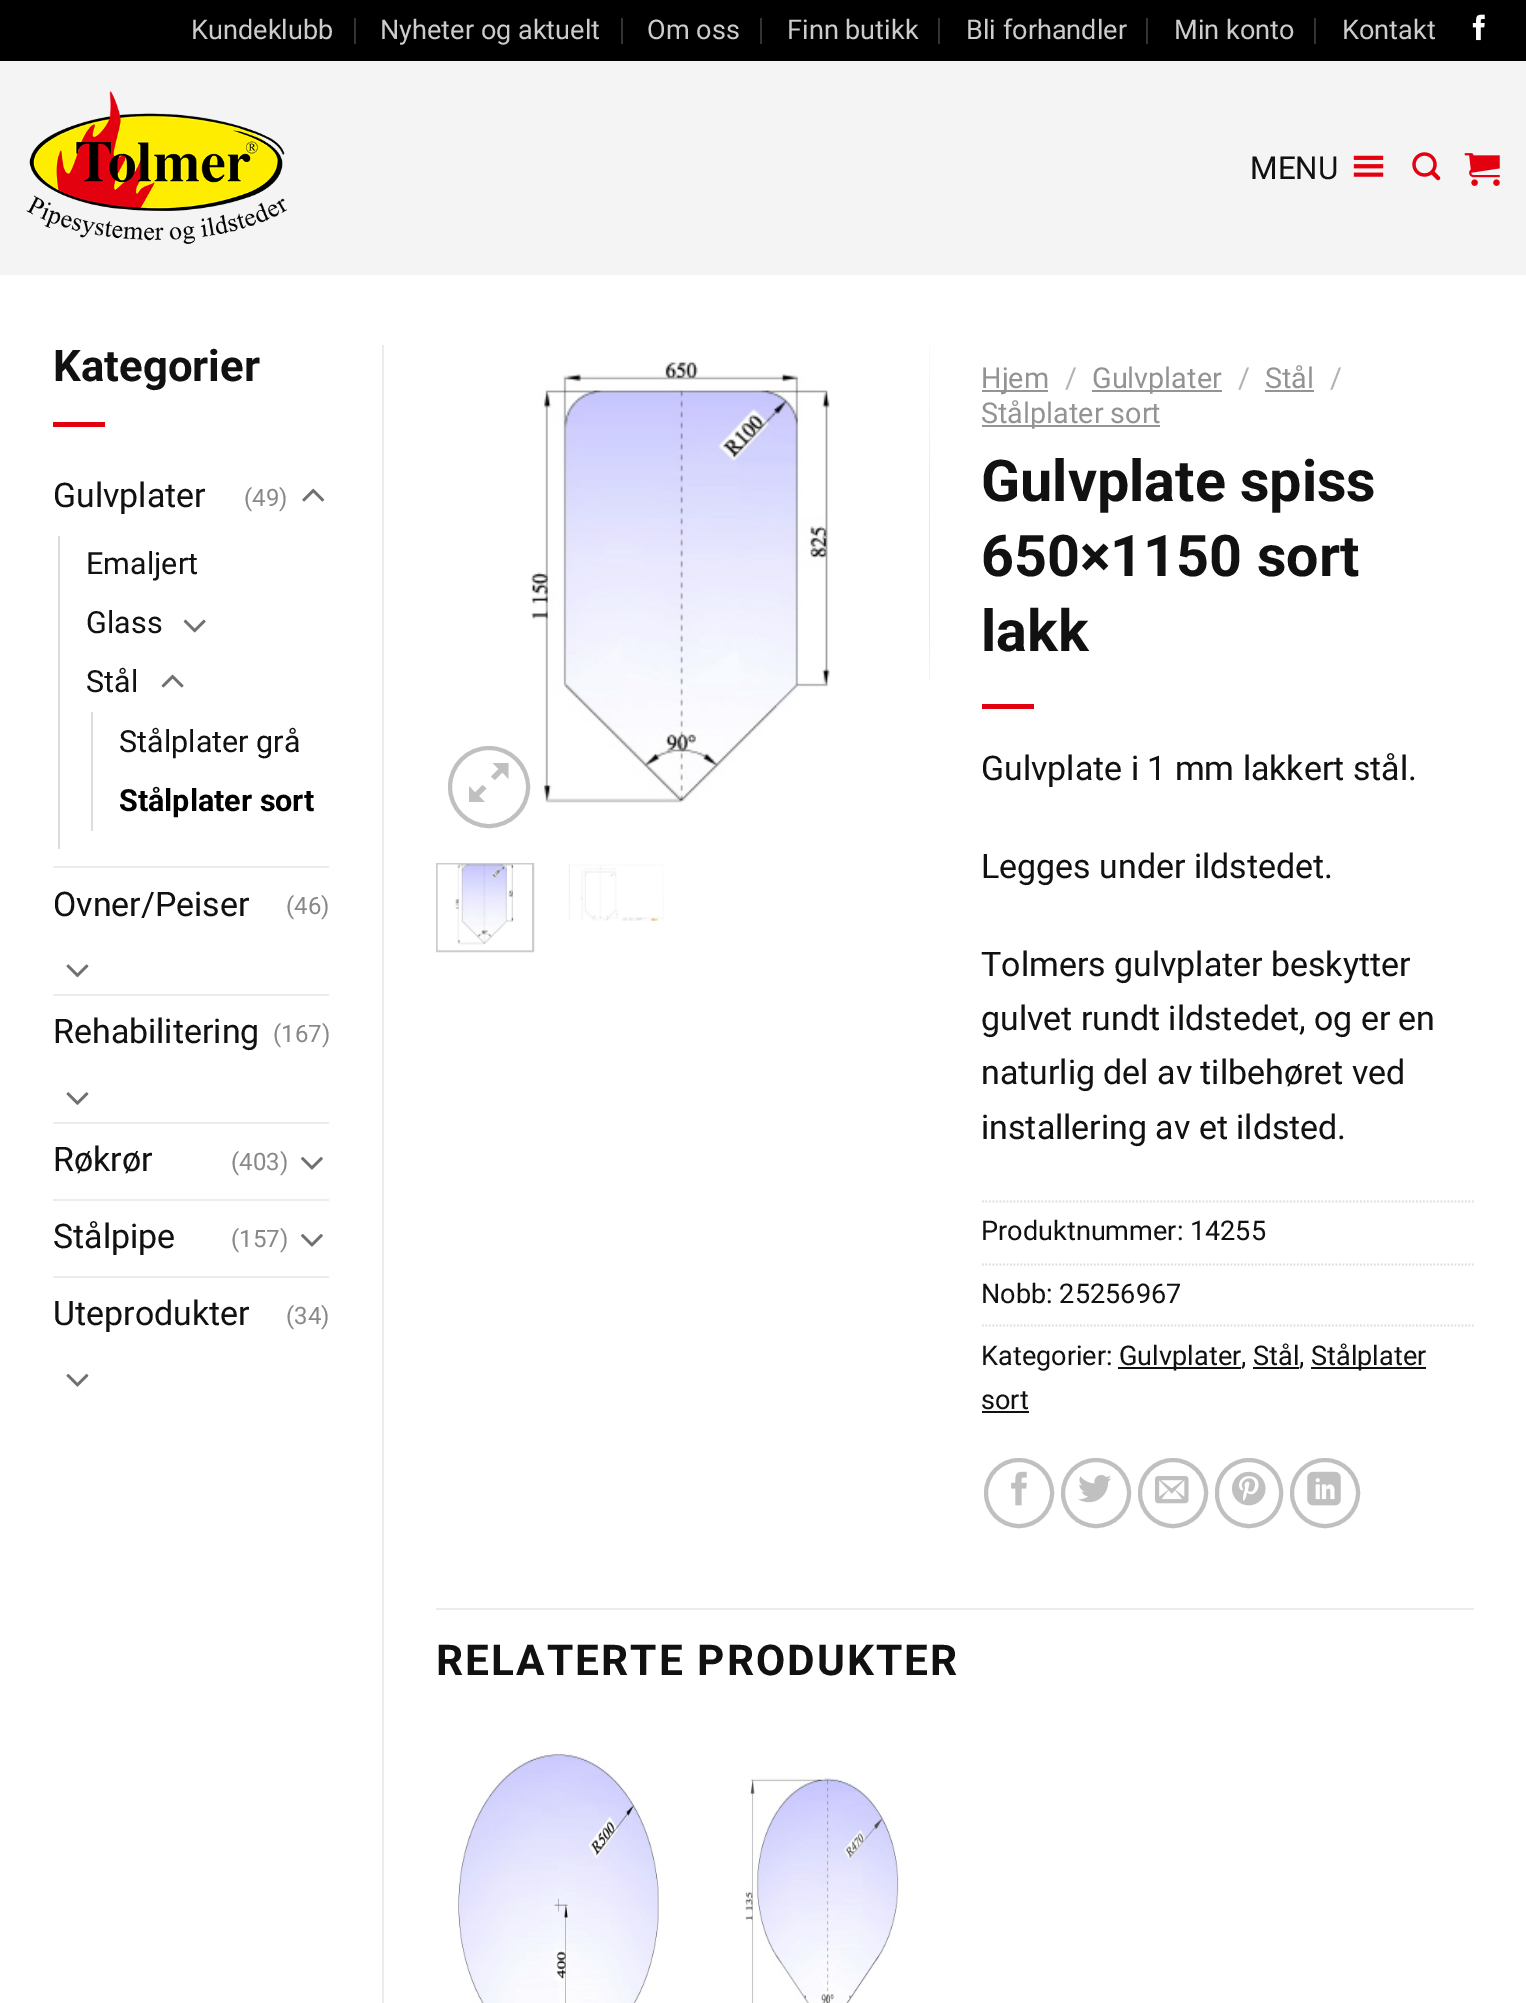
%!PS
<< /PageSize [1526 2003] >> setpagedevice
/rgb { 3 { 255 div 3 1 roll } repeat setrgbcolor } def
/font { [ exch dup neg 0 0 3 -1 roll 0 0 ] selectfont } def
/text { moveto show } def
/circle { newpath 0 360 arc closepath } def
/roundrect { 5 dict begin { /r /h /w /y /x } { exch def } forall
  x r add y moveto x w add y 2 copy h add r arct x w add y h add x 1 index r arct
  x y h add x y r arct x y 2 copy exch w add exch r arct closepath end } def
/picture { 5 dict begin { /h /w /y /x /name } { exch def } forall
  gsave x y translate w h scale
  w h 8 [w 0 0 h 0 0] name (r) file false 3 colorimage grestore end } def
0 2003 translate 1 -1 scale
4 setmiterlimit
255 255 255 rgb
0 0 1526 2003 rectfill
0 0 0 rgb
0 0 1526 61 rectfill
51 51 51 rgb
354 18 2 26 rectfill
621 18 2 26 rectfill
760 18 2 26 rectfill
938 18 2 26 rectfill
1146 18 2 26 rectfill
1314 18 2 26 rectfill
(img_01.rgb) 1472 14 13 27 picture
244 244 244 rgb
0 61 1526 214 rectfill
(img_02.rgb) 26 91 261 153 picture
(img_03.rgb) 1353 155 31 22 picture
(img_04.rgb) 1412 152 29 29 picture
(img_05.rgb) 1464 153 36 33 picture
227 0 15 rgb
53 422 52 5 rectfill
(img_06.rgb) 302 488 23 14 picture
221 221 221 rgb
58 536 2 313 rectfill
(img_07.rgb) 183 619 23 14 picture
(img_08.rgb) 161 674 23 14 picture
91 712 2 119 rectfill
236 236 236 rgb
53 866 276 2 rectfill
(img_09.rgb) 66 964 23 14 picture
53 994 276 2 rectfill
(img_10.rgb) 66 1092 23 13 picture
53 1122 276 2 rectfill
(img_11.rgb) 301 1157 22 13 picture
53 1199 276 2 rectfill
(img_11.rgb) 301 1234 22 13 picture
53 1276 276 2 rectfill
(img_12.rgb) 66 1374 23 13 picture
382 345 2 1658 rectfill
192 192 192 rgb
4 setlinewidth
489 787 39 circle stroke
508.5 763 moveto 0 16 rlineto -6 -6.5 rlineto -7.5 7.5 rlineto -4 -3.5 rlineto 7.5 -7.5 rlineto -6 -6 rlineto closepath 486.5 788.5 moveto -7.5 7.5 rlineto 6 6 rlineto -16 0 rlineto 0 -16 rlineto 6 6.5 rlineto 7.5 -7.5 rlineto closepath fill
(img_13.rgb) 531 361 299 442 picture
(img_14.rgb) 929 345 1 336 picture
204 204 204 rgb
2 setlinewidth
437 864 96 87 rectstroke
(img_15.rgb) 437 864 95 87 picture
(img_16.rgb) 568 864 96 57 picture
148 148 148 rgb
982 390 66 2 rectfill
1092 390 130 2 rectfill
1265 390 49 2 rectfill
982 425 178 2 rectfill
227 0 15 rgb
982 704 52 5 rectfill
221 221 221 rgb
1.8 setlinewidth
[1.75 1.75] 0 setdash
982 1201.5 moveto 491.5 0 rlineto stroke
982 1264.5 moveto 491.5 0 rlineto stroke
982 1325.5 moveto 491.5 0 rlineto stroke
17 17 17 rgb
1118 1367 123 2 rectfill
1311 1367 115 2 rectfill
1253 1367 46 2 rectfill
982 1411 47 2 rectfill
192 192 192 rgb
4 setlinewidth
[] 0 setdash
1019 1493 33 circle stroke
(img_17.rgb) 1011 1471 16 35 picture
1096 1493 33 circle stroke
(img_18.rgb) 1078 1475 34 28 picture
1173 1493 33 circle stroke
(img_19.rgb) 1155 1476 34 28 picture
1217 1460 64 66 32 roundrect stroke
(img_20.rgb) 1232 1471 34 35 picture
1325 1493 33 circle stroke
(img_21.rgb) 1307 1471 34 35 picture
236 236 236 rgb
436 1608 1038 2 rectfill
(img_22.rgb) 458 1753 201 250 picture
(img_23.rgb) 745 1772 154 231 picture
/Roboto-Regular 27.1 font
204 204 204 rgb
(Kundeklubb) 191 39 text
(Nyheter og aktuelt) 380 39 text
(Om oss) 647 39 text
(Finn butikk) 787 39 text
(Bli forhandler) 966 39 text
(Min konto) 1174 39 text
(Kontakt) 1342 39 text
/Roboto-Regular 31.5 font
17 17 17 rgb
(MENU) 1250 179 text
/Roboto-Bold 43.75 font
(Kategorier) 53 381 text
/Roboto-Regular 33.9 font
(Gulvplater) 53 507 text
/Roboto-Regular 24 font
136 136 136 rgb
(\(49\)) 244 506 text
/Roboto-Regular 30.5 font
17 17 17 rgb
(Emaljert) 86 574 text
(Glass) 86 633 text
(Stål) 86 692 text
(Stålplater grå) 119 752 text
/Roboto-Bold 30.5 font
0 0 0 rgb
(Stålplater sort) 119 811 text
/Roboto-Regular 33.9 font
17 17 17 rgb
(Ovner/Peiser) 53 916 text
/Roboto-Regular 24 font
136 136 136 rgb
(\(46\)) 286 914 text
/Roboto-Regular 33.9 font
17 17 17 rgb
(Rehabilitering) 53 1043 text
/Roboto-Regular 24 font
136 136 136 rgb
(\(167\)) 273 1042 text
/Roboto-Regular 33.9 font
17 17 17 rgb
(Røkrør) 53 1171 text
/Roboto-Regular 24 font
136 136 136 rgb
(\(403\)) 231 1170 text
/Roboto-Regular 33.9 font
17 17 17 rgb
(Stålpipe) 53 1248 text
/Roboto-Regular 24 font
136 136 136 rgb
(\(157\)) 231 1247 text
/Roboto-Regular 33.9 font
17 17 17 rgb
(Uteprodukter) 53 1325 text
/Roboto-Regular 24 font
136 136 136 rgb
(\(34\)) 286 1324 text
/Roboto-Regular 28.75 font
147 147 147 rgb
(Hjem) 981 388 text
178 178 178 rgb
(/) 1065 388 text
147 147 147 rgb
(Gulvplater) 1092 388 text
178 178 178 rgb
(/) 1238 388 text
147 147 147 rgb
(Stål) 1265 388 text
178 178 178 rgb
(/) 1330 388 text
147 147 147 rgb
(Stålplater sort) 981 423 text
/Roboto-Bold 57.5 font
17 17 17 rgb
(Gulvplate spiss) 981 501 text
(650×1150 sort) 981 576 text
(lakk) 981 651 text
/Roboto-Regular 33.9 font
(Gulvplate i 1 mm lakkert stål.) 981 780 text
(Legges under ildstedet.) 981 878 text
(Tolmers gulvplater beskytter) 981 976 text
(gulvet rundt ildstedet, og er en) 981 1030 text
(naturlig del av tilbehøret ved) 981 1084 text
(installering av et ildsted.) 981 1139 text
/Roboto-Regular 27.1 font
(Produktnummer: 14255) 981 1240 text
(Nobb: 25256967) 981 1303 text
(Kategorier:) 981 1365 text
(Gulvplater, Stål,) 1119 1365 text
(Stålplater) 1311 1365 text
(sort) 981 1409 text
/Roboto-Bold 42.4 font
436 1675 moveto 2.1 0 (RELATERTE PRODUKTER) ashow
showpage
